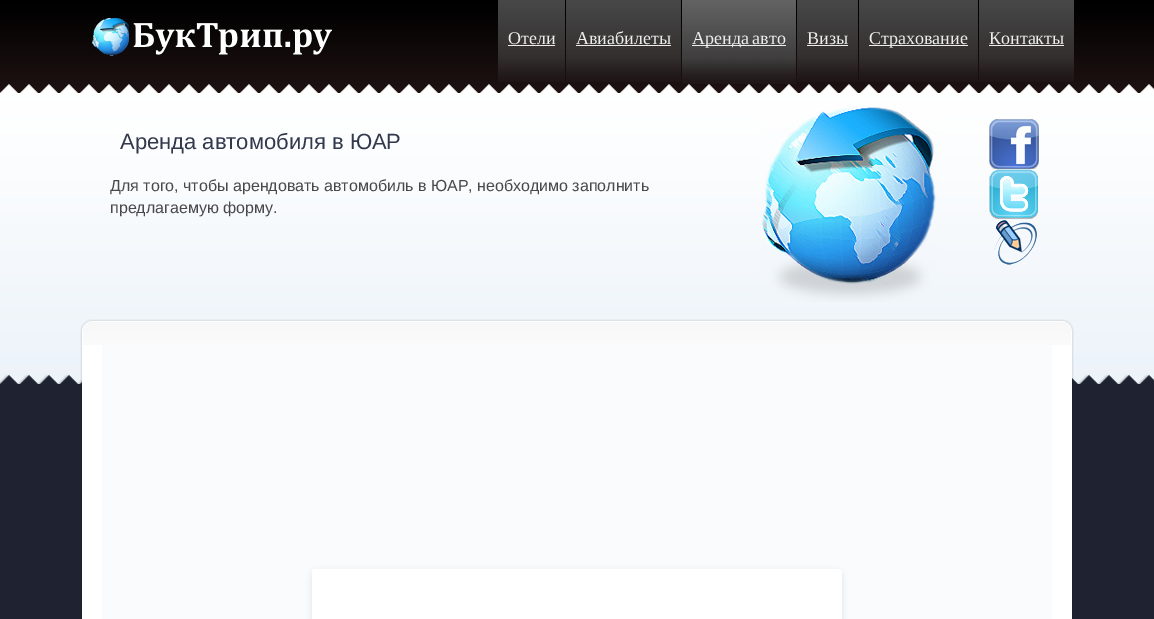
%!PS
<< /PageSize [1154 619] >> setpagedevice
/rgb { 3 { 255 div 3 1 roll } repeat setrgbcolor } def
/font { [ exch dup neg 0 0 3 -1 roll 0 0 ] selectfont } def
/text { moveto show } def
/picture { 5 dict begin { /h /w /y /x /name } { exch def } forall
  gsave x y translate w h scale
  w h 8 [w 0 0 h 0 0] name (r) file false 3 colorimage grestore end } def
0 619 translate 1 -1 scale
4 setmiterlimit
31 35 49 rgb
0 0 1154 619 rectfill
(img_01.rgb) 0 0 1154 384 picture
(img_02.rgb) 92 18 240 38 picture
(img_03.rgb) 498 0 67 82 picture
237 237 237 rgb
508 45 47 1 rectfill
(img_04.rgb) 566 0 115 82 picture
576 45 95 1 rectfill
(img_05.rgb) 682 0 114 84 picture
692 45 94 1 rectfill
(img_06.rgb) 797 0 61 82 picture
807 45 41 1 rectfill
(img_07.rgb) 859 0 119 82 picture
869 45 99 1 rectfill
(img_08.rgb) 979 0 95 82 picture
989 45 75 1 rectfill
(img_09.rgb) 762 103 176 199 picture
(img_10.rgb) 989 119 50 50 picture
(img_11.rgb) 989 169 49 50 picture
(img_12.rgb) 994 220 43 45 picture
(img_13.rgb) 80 345 994 274 picture
(img_14.rgb) 80 319 994 26 picture
(img_15.rgb) 102 345 950 274 picture
/LiberationSerif-Regular 18 font
(Отели) 508 44 text
(Авиабилеты) 576 44 text
692 44 moveto -1 0 32 (Аренда авто) widthshow
(Визы) 807 44 text
(Страхование) 869 44 text
(Контакты) 989 44 text
/LiberationSans-Regular 22 font
51 57 76 rgb
(Аренда автомобиля в ЮАР) 120 149 text
/LiberationSans-Regular 16 font
73 73 73 rgb
(Для того, чтобы арендовать автомобиль в ЮАР, необходимо заполнить) 110 191 text
(предлагаемую форму.) 110 213 text
showpage
